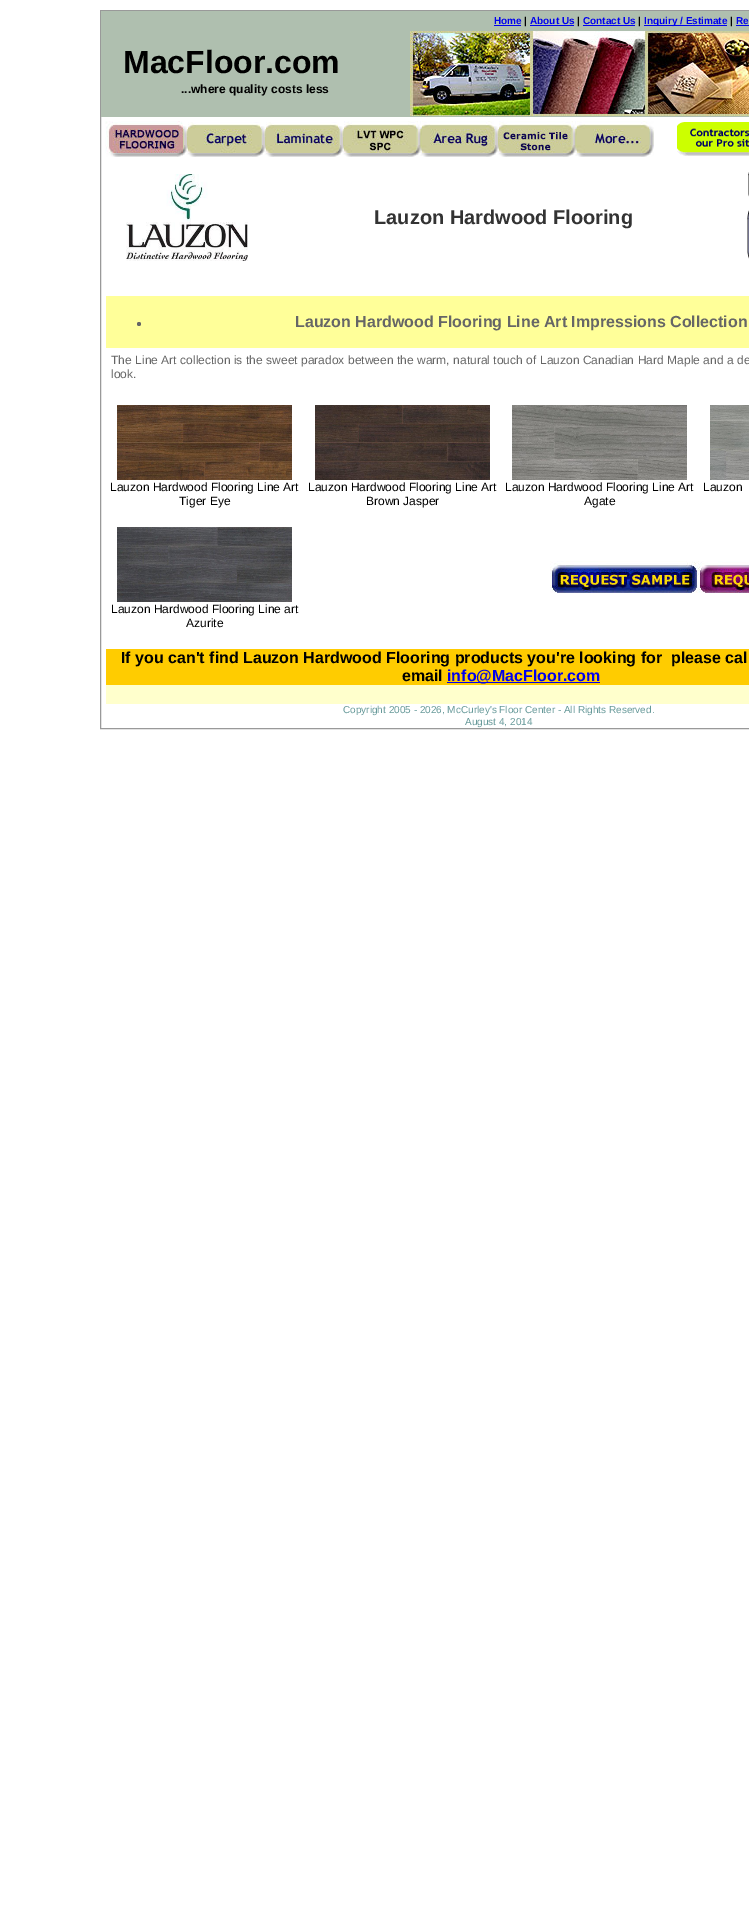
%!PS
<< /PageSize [749 1932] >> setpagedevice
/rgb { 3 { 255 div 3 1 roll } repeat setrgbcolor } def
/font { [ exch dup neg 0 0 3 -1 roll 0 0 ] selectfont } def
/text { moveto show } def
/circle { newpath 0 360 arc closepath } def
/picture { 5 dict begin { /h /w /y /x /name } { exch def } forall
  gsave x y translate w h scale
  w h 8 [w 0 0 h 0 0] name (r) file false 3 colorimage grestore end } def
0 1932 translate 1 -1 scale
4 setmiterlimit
255 255 255 rgb
0 0 749 1932 rectfill
153 153 153 rgb
100.5 10.5 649 718 rectstroke
175 191 175 rgb
101 11 648 106 rectfill
0 0 238 rgb
494 25 27 1 rectfill
530 25 44 1 rectfill
583 25 52 1 rectfill
644 25 83 1 rectfill
736 25 13 1 rectfill
(img_01.rgb) 410 31 339 85 picture
(img_02.rgb) 105 121 78 36 picture
(img_03.rgb) 183 126 5 29 picture
(img_04.rgb) 188 122 73 35 picture
(img_03.rgb) 261 126 5 29 picture
(img_05.rgb) 266 122 73 35 picture
(img_03.rgb) 339 126 5 29 picture
(img_06.rgb) 344 121 72 36 picture
(img_07.rgb) 416 121 6 35 picture
(img_08.rgb) 422 121 72 36 picture
(img_03.rgb) 494 126 5 29 picture
(img_09.rgb) 499 121 72 36 picture
(img_07.rgb) 571 121 6 35 picture
(img_10.rgb) 577 121 77 36 picture
(img_11.rgb) 677 122 72 34 picture
(img_12.rgb) 126 174 122 87 picture
(img_13.rgb) 747 172 2 87 picture
255 255 153 rgb
106 296 643 52 rectfill
102 102 102 rgb
139 324 2 circle fill
(img_14.rgb) 117 405 175 75 picture
(img_15.rgb) 315 405 175 75 picture
(img_16.rgb) 512 405 175 75 picture
(img_17.rgb) 710 405 39 75 picture
(img_18.rgb) 117 527 175 75 picture
(img_19.rgb) 550 561 199 32 picture
255 204 0 rgb
106 649 643 36 rectfill
0 0 238 rgb
447 682 153 1 rectfill
255 255 204 rgb
106 685 643 19 rectfill
/LiberationSans-Bold 10 font
0 0 238 rgb
(Home) 494 24 text
0 0 0 rgb
(|) 524 24 text
0 0 238 rgb
(About Us) 530 24 text
0 0 0 rgb
(|) 577 24 text
0 0 238 rgb
(Contact Us) 583 24 text
0 0 0 rgb
(|) 638 24 text
0 0 238 rgb
(Inquiry / Estimate) 644 24 text
0 0 0 rgb
(|) 730 24 text
0 0 238 rgb
(Re) 736 24 text
/LiberationSans-Bold 32 font
0 0 0 rgb
(MacFloor.com) 123 73 text
/LiberationSans-Bold 12 font
(...where quality costs less) 181 93 text
/LiberationSans-Bold 20 font
51 51 51 rgb
(Lauzon Hardwood Flooring) 374 224 text
/LiberationSans-Bold 16 font
102 102 102 rgb
(Lauzon Hardwood Flooring Line Art Impressions Collection) 295 327 text
/LiberationSans-Regular 12 font
111 364 moveto 0.2 0 32 (The Line Art collection is the sweet paradox between the warm, natural touch of Lauzon Canadian Hard Maple and a de) widthshow
(look.) 111 378 text
0 0 0 rgb
(Lauzon Hardwood Flooring Line Art) 110 491 text
(Tiger Eye) 179 505 text
(Lauzon Hardwood Flooring Line Art) 308 491 text
(Brown Jasper) 366 505 text
(Lauzon Hardwood Flooring Line Art) 505 491 text
(Agate) 584 505 text
(Lauzon) 703 491 text
(Lauzon Hardwood Flooring Line art) 111 613 text
(Azurite) 186 627 text
/LiberationSans-Bold 16 font
(If you can't find Lauzon Hardwood Flooring products you're looking for) 121 663 text
(please cal) 671 663 text
(email) 402 681 text
0 0 238 rgb
(info@MacFloor.com) 447 681 text
/LiberationSans-Regular 10 font
102 153 153 rgb
(Copyright 2005 - 2026, McCurley's Floor Center - All Rights Reserved.) 343 713 text
(August 4, 2014) 465 725 text
showpage
